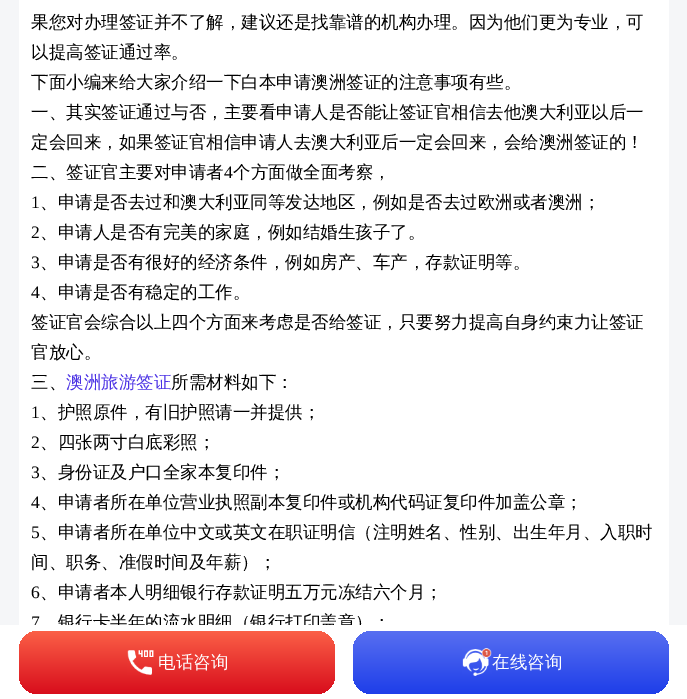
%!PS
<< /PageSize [687 699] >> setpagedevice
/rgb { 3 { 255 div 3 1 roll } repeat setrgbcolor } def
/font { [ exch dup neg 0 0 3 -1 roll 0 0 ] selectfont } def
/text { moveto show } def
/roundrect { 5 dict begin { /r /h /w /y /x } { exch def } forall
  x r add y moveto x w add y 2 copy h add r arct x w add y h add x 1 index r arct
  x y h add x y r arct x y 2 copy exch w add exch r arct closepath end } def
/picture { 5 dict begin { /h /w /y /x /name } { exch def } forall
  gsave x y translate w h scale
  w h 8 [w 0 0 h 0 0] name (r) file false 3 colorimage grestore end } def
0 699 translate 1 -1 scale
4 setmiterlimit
245 246 248 rgb
0 0 687 699 rectfill
255 255 255 rgb
19 0 650 625 rectfill
/WenQuanYiZenHei-Medium 17.5 font
0 0 0 rgb
(果您对办理签证并不了解，建议还是找靠谱的机构办理。因为他们更为专业，可) 31 28 text
(以提高签证通过率。) 31 58 text
(下面小编来给大家介绍一下白本申请澳洲签证的注意事项有些。) 31 88 text
(一、其实签证通过与否，主要看申请人是否能让签证官相信去他澳大利亚以后一) 31 118 text
(定会回来，如果签证官相信申请人去澳大利亚后一定会回来，会给澳洲签证的！) 31 148 text
(二、签证官主要对申请者) 31 178 text
/LiberationSerif-Regular 17.5 font
(4) 224 178 text
/WenQuanYiZenHei-Medium 17.5 font
(个方面做全面考察，) 233 178 text
/LiberationSerif-Regular 17.5 font
(1) 31 208 text
/WenQuanYiZenHei-Medium 17.5 font
(、申请是否去过和澳大利亚同等发达地区，例如是否去过欧洲或者澳洲；) 40 208 text
/LiberationSerif-Regular 17.5 font
(2) 31 238 text
/WenQuanYiZenHei-Medium 17.5 font
(、申请人是否有完美的家庭，例如结婚生孩子了。) 40 238 text
/LiberationSerif-Regular 17.5 font
(3) 31 268 text
/WenQuanYiZenHei-Medium 17.5 font
(、申请是否有很好的经济条件，例如房产、车产，存款证明等。) 40 268 text
/LiberationSerif-Regular 17.5 font
(4) 31 298 text
/WenQuanYiZenHei-Medium 17.5 font
(、申请是否有稳定的工作。) 40 298 text
(签证官会综合以上四个方面来考虑是否给签证，只要努力提高自身约束力让签证) 31 328 text
(官放心。) 31 358 text
(三、) 31 388 text
76 51 229 rgb
(澳洲旅游签证) 66 388 text
0 0 0 rgb
(所需材料如下：) 171 388 text
/LiberationSerif-Regular 17.5 font
(1) 31 418 text
/WenQuanYiZenHei-Medium 17.5 font
(、护照原件，有旧护照请一并提供；) 40 418 text
/LiberationSerif-Regular 17.5 font
(2) 31 448 text
/WenQuanYiZenHei-Medium 17.5 font
(、四张两寸白底彩照；) 40 448 text
/LiberationSerif-Regular 17.5 font
(3) 31 478 text
/WenQuanYiZenHei-Medium 17.5 font
(、身份证及户口全家本复印件；) 40 478 text
/LiberationSerif-Regular 17.5 font
(4) 31 508 text
/WenQuanYiZenHei-Medium 17.5 font
(、申请者所在单位营业执照副本复印件或机构代码证复印件加盖公章；) 40 508 text
/LiberationSerif-Regular 17.5 font
(5) 31 538 text
/WenQuanYiZenHei-Medium 17.5 font
(、申请者所在单位中文或英文在职证明信（注明姓名、性别、出生年月、入职时) 40 538 text
(间、职务、准假时间及年薪）；) 31 568 text
/LiberationSerif-Regular 17.5 font
(6) 31 598 text
/WenQuanYiZenHei-Medium 17.5 font
(、申请者本人明细银行存款证明五万元冻结六个月；) 40 598 text
/LiberationSerif-Regular 17.5 font
(7) 31 628 text
/WenQuanYiZenHei-Medium 17.5 font
(、银行卡半年的流水明细（银行打印盖章）；) 40 628 text
255 255 255 rgb
0 625 687 74 rectfill
gsave 19 631 316 63 19 roundrect clip newpath
<< /ShadingType 2 /ColorSpace /DeviceRGB /Coords [177 631 177 694] /Extend [true true] /Function << /FunctionType 2 /Domain [0 1] /C0 [0.984 0.376 0.278] /C1 [0.847 0.051 0.11] /N 1 >> >> shfill grestore
(img_01.rgb) 127 650 27 25 picture
(电话咨询) 158 668 text
gsave 353 631 316 63 19 roundrect clip newpath
<< /ShadingType 2 /ColorSpace /DeviceRGB /Coords [511 631 511 694] /Extend [true true] /Function << /FunctionType 2 /Domain [0 1] /C0 [0.345 0.435 0.945] /C1 [0.118 0.243 0.914] /N 1 >> >> shfill grestore
(img_02.rgb) 462 648 30 28 picture
(在线咨询) 492 668 text
showpage
